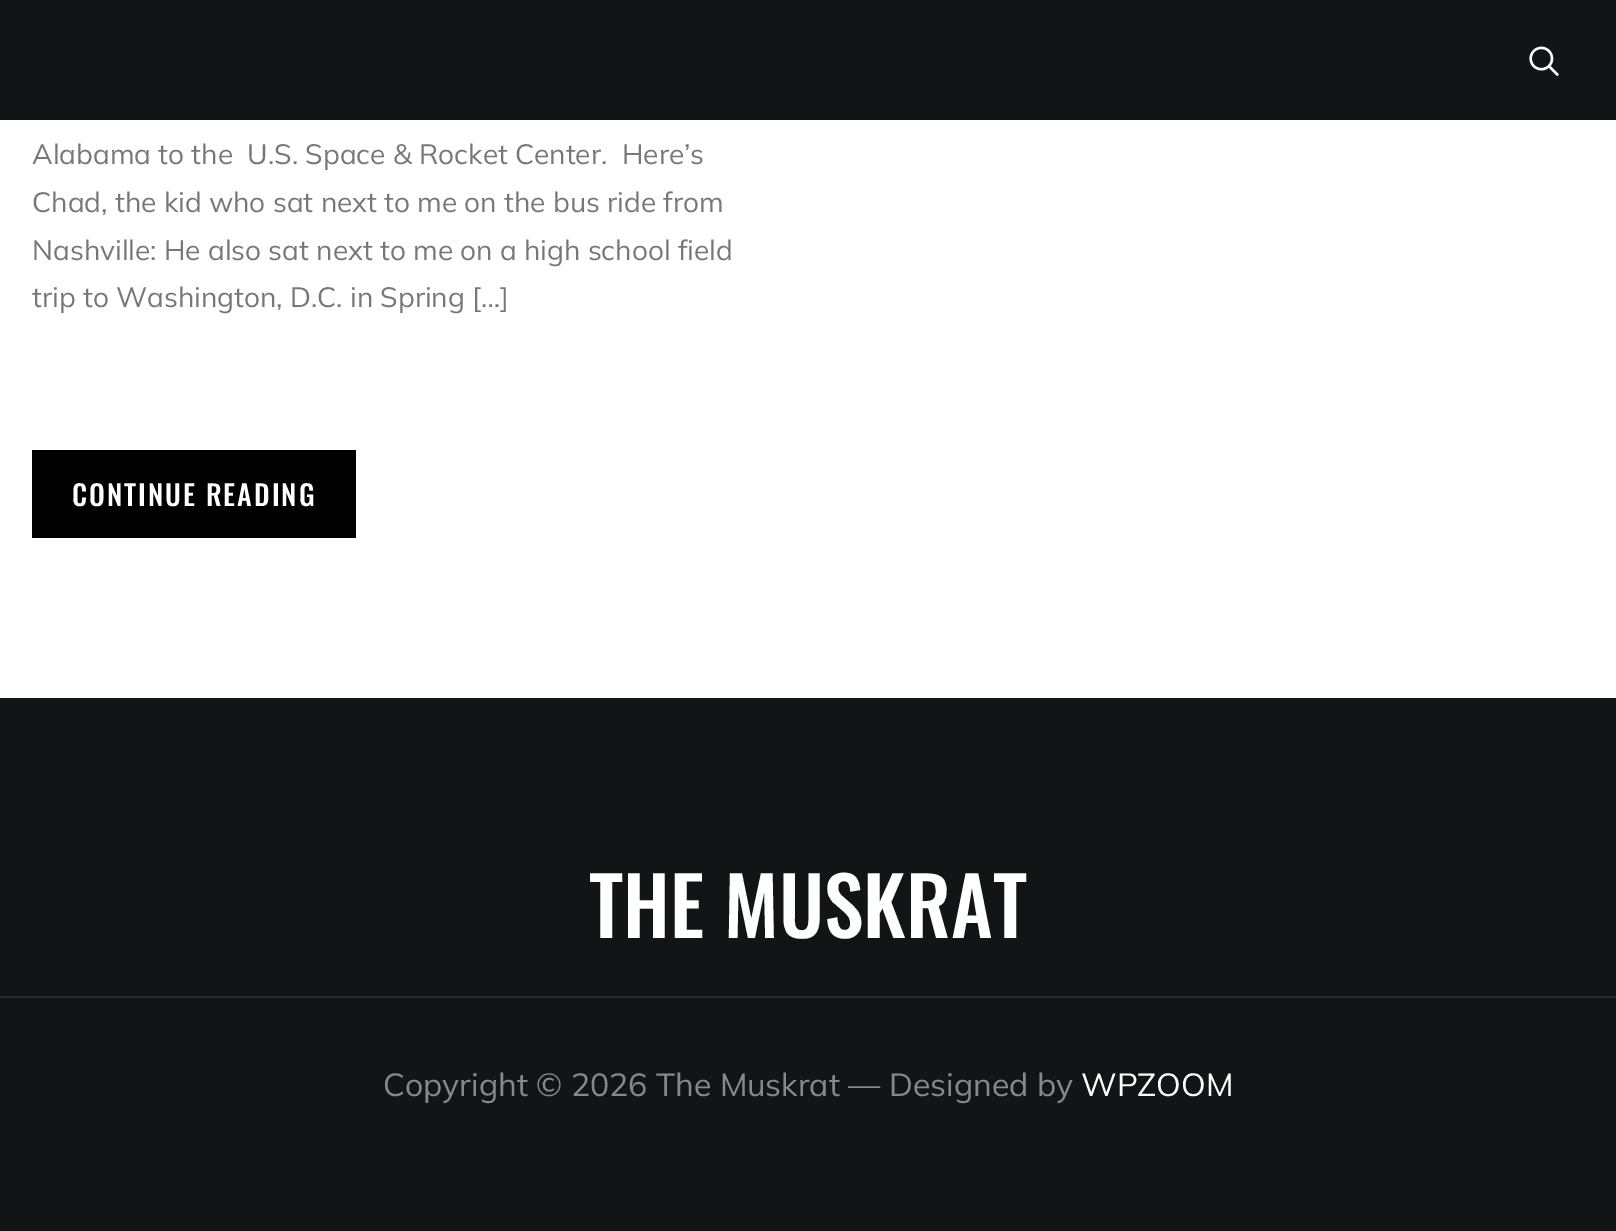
%!PS
<< /PageSize [1616 1231] >> setpagedevice
/rgb { 3 { 255 div 3 1 roll } repeat setrgbcolor } def
/font { [ exch dup neg 0 0 3 -1 roll 0 0 ] selectfont } def
/text { moveto show } def
/picture { 5 dict begin { /h /w /y /x /name } { exch def } forall
  gsave x y translate w h scale
  w h 8 [w 0 0 h 0 0] name (r) file false 3 colorimage grestore end } def
0 1231 translate 1 -1 scale
4 setmiterlimit
255 255 255 rgb
0 0 1616 1231 rectfill
18 21 22 rgb
0 0 1616 120 rectfill
(img_01.rgb) 1529 46 30 30 picture
0 0 0 rgb
32 450 324 88 rectfill
18 21 22 rgb
0 698 1616 533 rectfill
42 44 45 rgb
0 996 1616 2 rectfill
/Mulish-Regular 28 font
119 119 119 rgb
(Alabama to the  U.S. Space & Rocket Center.  Here’s) 32 164 text
(Chad, the kid who sat next to me on the bus ride from) 32 212 text
(Nashville: He also sat next to me on a high school field) 32 260 text
(trip to Washington, D.C. in Spring […]) 32 307 text
/Oswald-Medium 28 font
255 255 255 rgb
72 506 moveto 2 0 (CONTINUE READING) ashow
/Oswald-Medium 80 font
(THE MUSKRAT) 589 938 text
/Mulish-Regular 32 font
135 136 138 rgb
(Copyright © 2026 The Muskrat — Designed by) 383 1096 text
255 255 255 rgb
(WPZOOM) 1081 1096 text
showpage
